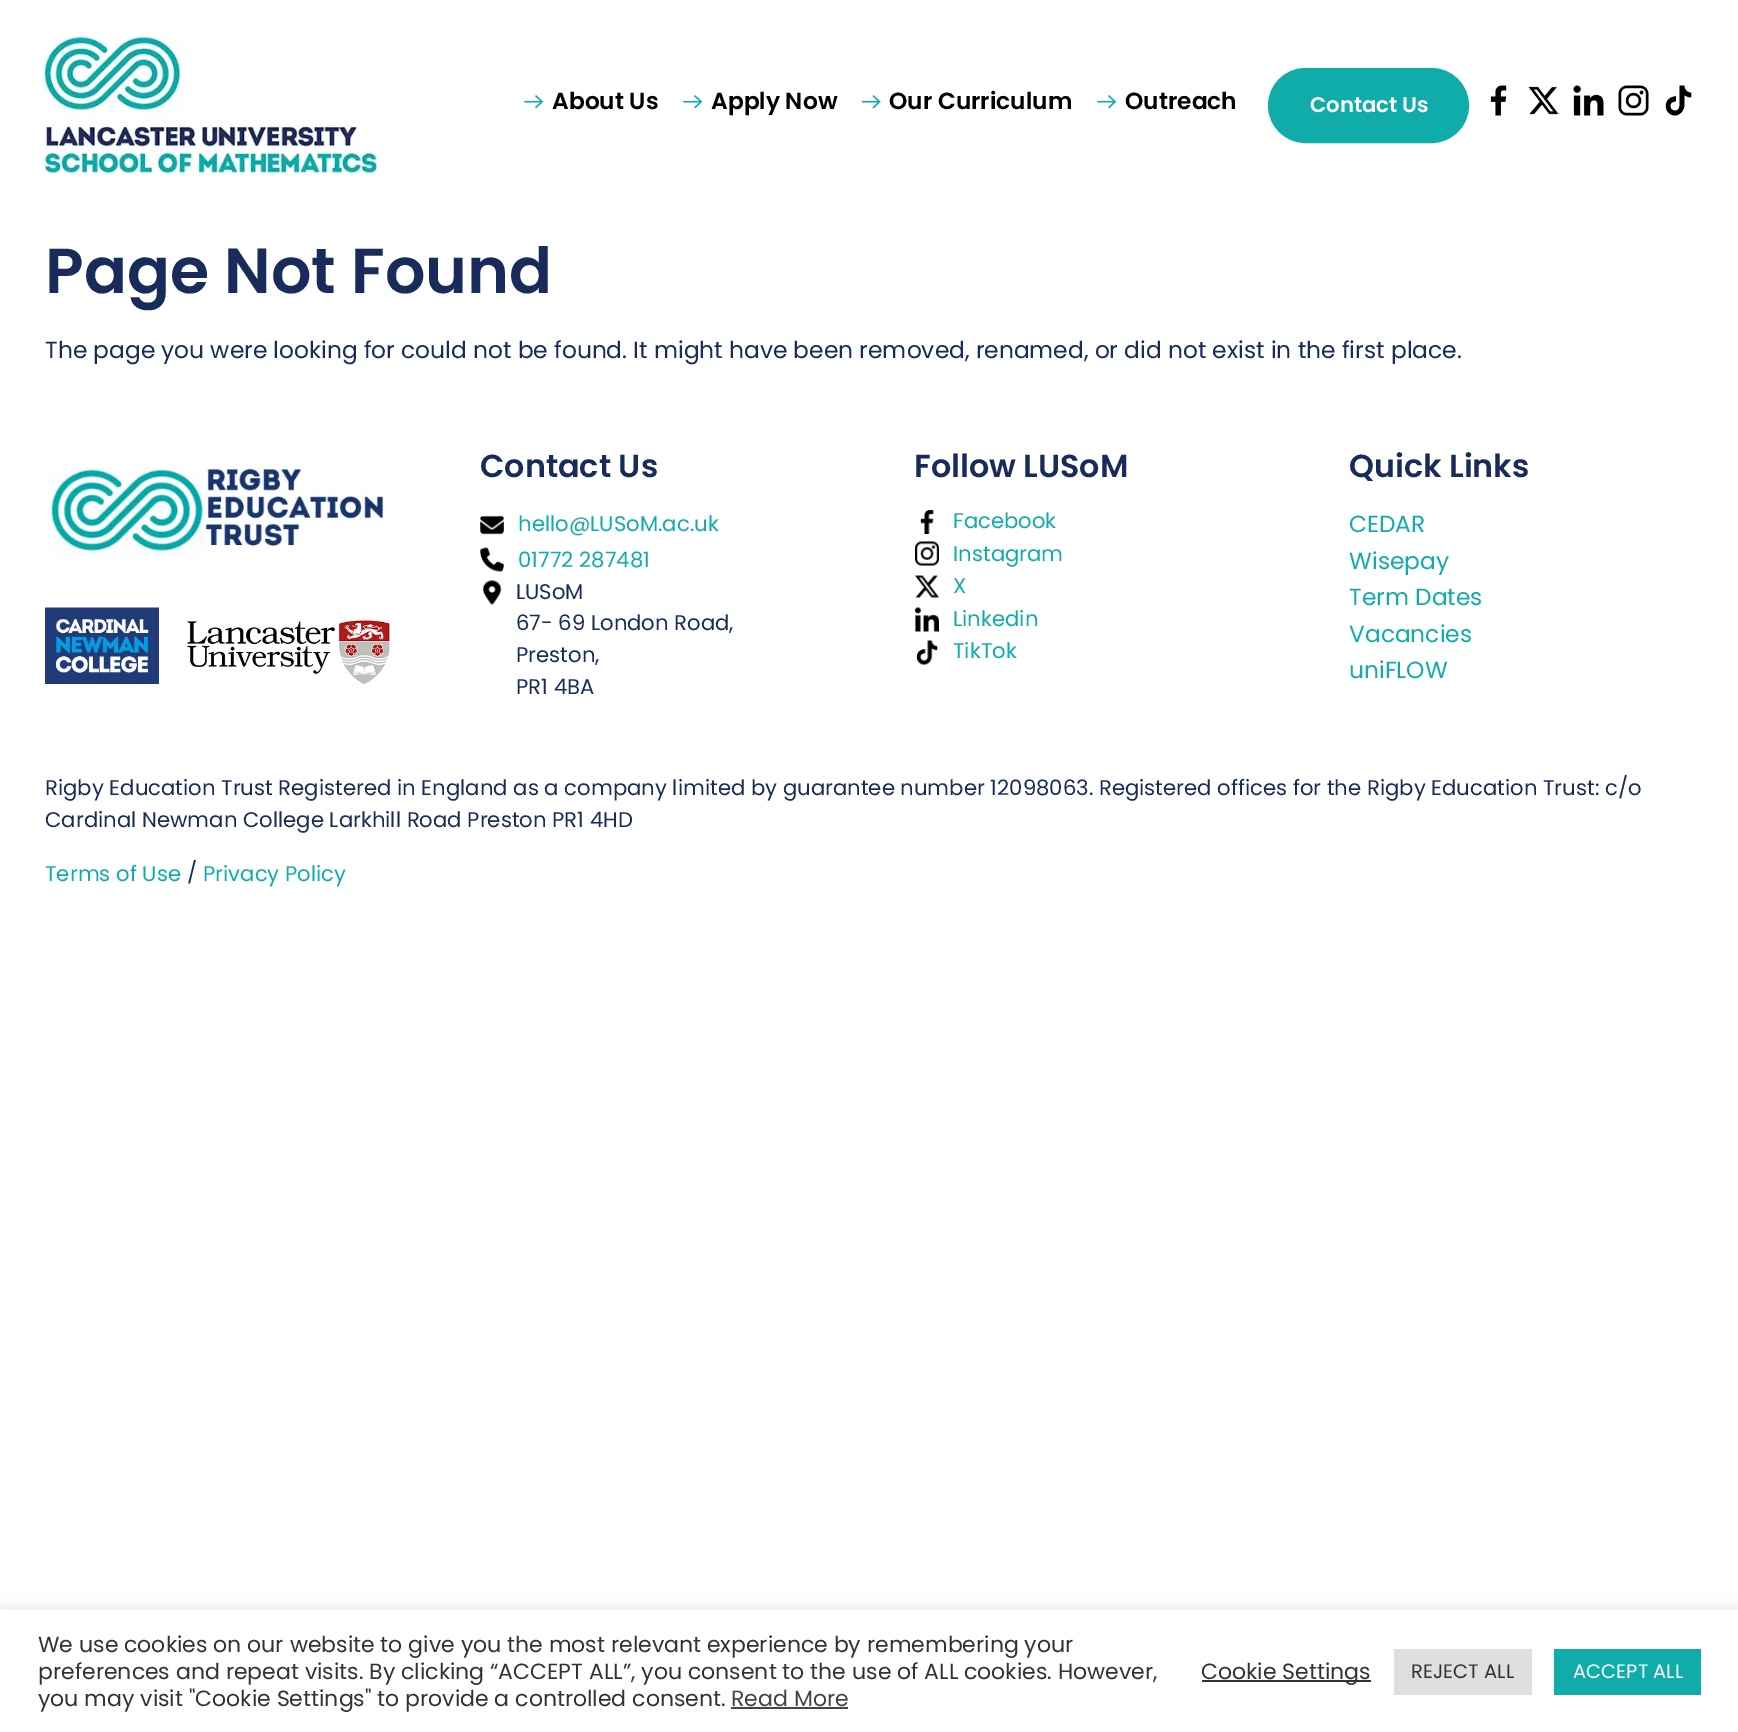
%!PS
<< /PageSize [1738 1732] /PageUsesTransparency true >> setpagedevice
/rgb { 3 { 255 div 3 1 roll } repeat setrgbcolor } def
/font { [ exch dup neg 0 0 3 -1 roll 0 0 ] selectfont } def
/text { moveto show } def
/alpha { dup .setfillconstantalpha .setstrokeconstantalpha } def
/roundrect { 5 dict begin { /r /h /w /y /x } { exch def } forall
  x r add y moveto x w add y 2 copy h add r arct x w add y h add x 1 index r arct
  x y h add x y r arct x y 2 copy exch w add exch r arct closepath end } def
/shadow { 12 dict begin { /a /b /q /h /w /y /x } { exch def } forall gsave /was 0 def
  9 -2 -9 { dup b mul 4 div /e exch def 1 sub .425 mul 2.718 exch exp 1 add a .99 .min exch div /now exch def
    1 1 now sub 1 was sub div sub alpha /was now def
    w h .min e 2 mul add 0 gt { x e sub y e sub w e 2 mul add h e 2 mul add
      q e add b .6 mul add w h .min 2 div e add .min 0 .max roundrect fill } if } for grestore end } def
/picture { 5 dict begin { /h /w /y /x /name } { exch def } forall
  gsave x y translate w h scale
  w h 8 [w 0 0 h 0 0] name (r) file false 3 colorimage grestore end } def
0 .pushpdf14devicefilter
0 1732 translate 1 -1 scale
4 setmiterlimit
255 255 255 rgb
0 0 1738 1732 rectfill
(img_01.rgb) 45 37 333 136 picture
(img_02.rgb) 524 95 20 14 picture
(img_02.rgb) 683 95 20 14 picture
(img_03.rgb) 861 95 20 14 picture
(img_02.rgb) 1097 95 20 14 picture
15 172 170 rgb
1271 71 195 69 34.5 roundrect gsave fill grestore
6 setlinewidth
stroke
(img_04.rgb) 1490 85 17 31 picture
(img_05.rgb) 1528 86 31 29 picture
(img_06.rgb) 1573 85 31 31 picture
(img_07.rgb) 1618 85 31 31 picture
(img_08.rgb) 1665 85 27 31 picture
(img_09.rgb) 50 468 335 88 picture
(img_10.rgb) 45 607 114 77 picture
(img_11.rgb) 186 617 204 67 picture
(img_12.rgb) 480 515 24 20 picture
(img_13.rgb) 480 547 24 25 picture
(img_14.rgb) 482 580 20 25 picture
(img_15.rgb) 920 510 14 24 picture
(img_16.rgb) 915 541 24 25 picture
(img_17.rgb) 915 575 24 23 picture
(img_18.rgb) 915 607 24 25 picture
(img_19.rgb) 916 640 22 25 picture
172 171 171 rgb
0 1608 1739 123 0 7.5 0.3 shadow
255 255 255 rgb
0 1610 1738 122 rectfill
68 68 68 rgb
731 1707 117 2 rectfill
51 51 51 rgb
1202 1680 169 2 rectfill
222 223 224 rgb
1394 1649 138 46 rectfill
15 172 170 rgb
1554 1649 147 46 rectfill
/Poppins-SemiBold 23.33 font
0 0 0 rgb
(About Us) 552 109 text
(Apply Now) 711 109 text
(Our Curriculum) 889 109 text
(Outreach) 1125 109 text
/Poppins-SemiBold 21.2 font
255 255 255 rgb
(Contact Us) 1310 112 text
/Poppins-SemiBold 63.5 font
24 43 90 rgb
(Page Not Found) 45 293 text
/Poppins-Regular 23.33 font
(The page you were looking for could not be found. It might have been removed, renamed, or did not exist in the first place.) 45 358 text
/Poppins-SemiBold 31.75 font
(Contact Us) 480 477 text
/Poppins-Regular 21.2 font
15 172 170 rgb
(hello@LUSoM.ac.uk) 518 531 text
(01772 287481) 518 567 text
24 43 90 rgb
(LUSoM) 516 599 text
(67- 69 London Road,) 516 630 text
(Preston,) 516 662 text
(PR1 4BA) 516 694 text
/Poppins-SemiBold 31.75 font
(Follow LUSoM) 914 477 text
/Poppins-Regular 21.2 font
15 172 170 rgb
(Facebook) 953 528 text
(Instagram) 953 561 text
(X) 953 593 text
(Linkedin) 953 626 text
(TikTok) 953 658 text
/Poppins-SemiBold 31.75 font
24 43 90 rgb
(Quick Links) 1349 477 text
/Poppins-Regular 23.33 font
15 172 170 rgb
(CEDAR) 1349 532 text
(Wisepay) 1349 569 text
(Term Dates) 1349 605 text
(Vacancies) 1349 642 text
(uniFLOW) 1349 678 text
/Poppins-Regular 21.2 font
24 43 90 rgb
(Rigby Education Trust Registered in England as a company limited by guarantee number 12098063. Registered offices for the Rigby Education Trust: c/o) 45 795 text
(Cardinal Newman College Larkhill Road Preston PR1 4HD) 45 827 text
15 172 170 rgb
(Terms of Use) 45 881 text
24 43 90 rgb
(/) 187 880 text
15 172 170 rgb
(Privacy Policy) 203 881 text
/Poppins-Regular 22 font
51 51 51 rgb
(We use cookies on our website to give you the most relevant experience by remembering your) 38 1652 text
(preferences and repeat visits. By clicking “ACCEPT ALL”, you consent to the use of ALL cookies. However,) 38 1679 text
(you may visit "Cookie Settings" to provide a controlled consent.) 38 1706 text
68 68 68 rgb
(Read More) 731 1706 text
51 51 51 rgb
(Cookie Settings) 1201 1679 text
/Poppins-Regular 19.5 font
(REJECT ALL) 1411 1678 text
255 255 255 rgb
(ACCEPT ALL) 1573 1678 text
.poppdf14devicefilter showpage
